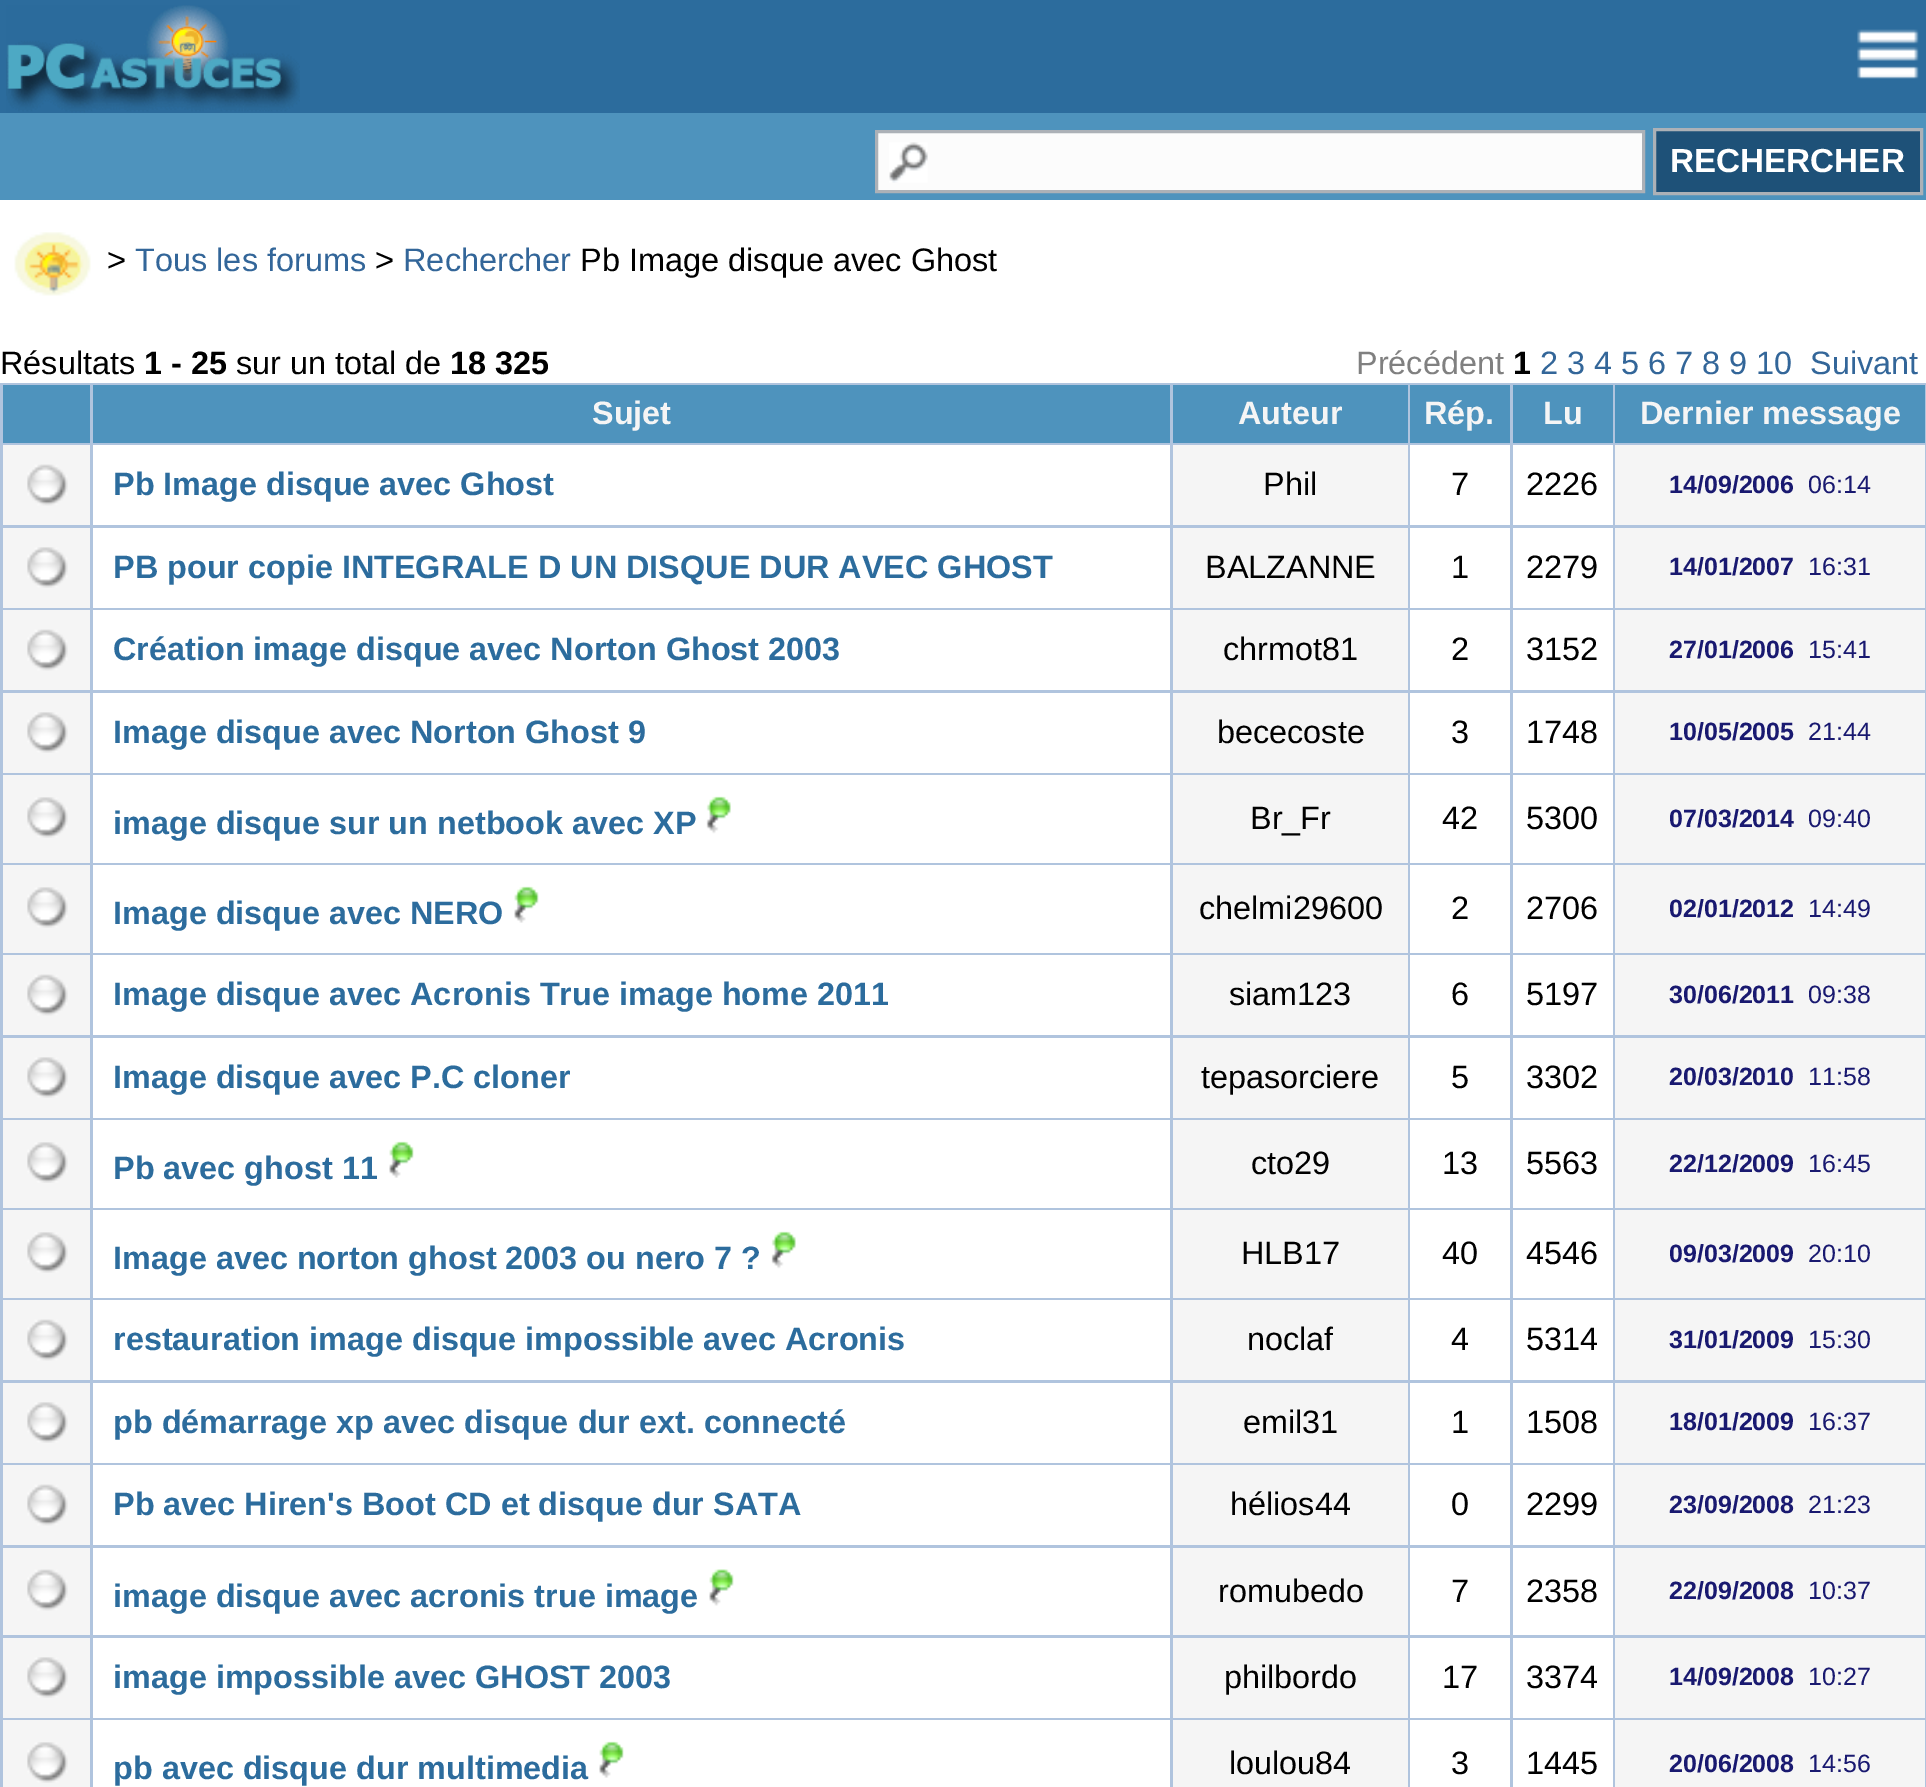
%!PS
<< /PageSize [1926 1787] >> setpagedevice
/rgb { 3 { 255 div 3 1 roll } repeat setrgbcolor } def
/font { [ exch dup neg 0 0 3 -1 roll 0 0 ] selectfont } def
/text { moveto show } def
/picture { 5 dict begin { /h /w /y /x /name } { exch def } forall
  gsave x y translate w h scale
  w h 8 [w 0 0 h 0 0] name (r) file false 3 colorimage grestore end } def
0 1787 translate 1 -1 scale
4 setmiterlimit
255 255 255 rgb
0 0 1926 1787 rectfill
44 108 157 rgb
0 0 1926 113 rectfill
(img_01.rgb) 6 5 294 108 picture
(img_02.rgb) 1857 29 62 50 picture
78 147 189 rgb
0 113 1926 87 rectfill
252 252 252 rgb
878 133 764 57 rectfill
(img_03.rgb) 889 142 39 41 picture
172 177 183 rgb
3 setlinewidth
876.5 131.5 767 60 rectstroke
30 81 120 rgb
1654.5 129.5 moveto 267 0 rlineto 0 64 rlineto -267 0 rlineto closepath gsave fill grestore
172 177 183 rgb
stroke
(img_04.rgb) 14 232 77 64 picture
176 196 222 rgb
0 383 1926 1404 rectfill
78 147 189 rgb
3 385 87 58 rectfill
93 385 1077 58 rectfill
1173 385 235 58 rectfill
1410 385 100 58 rectfill
1513 385 100 58 rectfill
1615 385 310 58 rectfill
245 245 245 rgb
3 445 87 80 rectfill
(img_05.rgb) 27 464 41 42 picture
255 255 255 rgb
93 445 1077 80 rectfill
245 245 245 rgb
1173 445 235 80 rectfill
255 255 255 rgb
1410 445 100 80 rectfill
1513 445 100 80 rectfill
245 245 245 rgb
1615 445 310 80 rectfill
3 528 87 80 rectfill
(img_06.rgb) 27 547 41 41 picture
255 255 255 rgb
93 528 1077 80 rectfill
245 245 245 rgb
1173 528 235 80 rectfill
255 255 255 rgb
1410 528 100 80 rectfill
1513 528 100 80 rectfill
245 245 245 rgb
1615 528 310 80 rectfill
3 610 87 80 rectfill
(img_05.rgb) 27 629 41 42 picture
255 255 255 rgb
93 610 1077 80 rectfill
245 245 245 rgb
1173 610 235 80 rectfill
255 255 255 rgb
1410 610 100 80 rectfill
1513 610 100 80 rectfill
245 245 245 rgb
1615 610 310 80 rectfill
3 693 87 80 rectfill
(img_06.rgb) 27 712 41 41 picture
255 255 255 rgb
93 693 1077 80 rectfill
245 245 245 rgb
1173 693 235 80 rectfill
255 255 255 rgb
1410 693 100 80 rectfill
1513 693 100 80 rectfill
245 245 245 rgb
1615 693 310 80 rectfill
3 775 87 88 rectfill
(img_06.rgb) 27 797 41 41 picture
255 255 255 rgb
93 775 1077 88 rectfill
(img_07.rgb) 706 796 25 38 picture
245 245 245 rgb
1173 775 235 88 rectfill
255 255 255 rgb
1410 775 100 88 rectfill
1513 775 100 88 rectfill
245 245 245 rgb
1615 775 310 88 rectfill
3 865 87 88 rectfill
(img_06.rgb) 27 887 41 41 picture
255 255 255 rgb
93 865 1077 88 rectfill
(img_08.rgb) 514 886 25 37 picture
245 245 245 rgb
1173 865 235 88 rectfill
255 255 255 rgb
1410 865 100 88 rectfill
1513 865 100 88 rectfill
245 245 245 rgb
1615 865 310 88 rectfill
3 955 87 80 rectfill
(img_05.rgb) 27 974 41 42 picture
255 255 255 rgb
93 955 1077 80 rectfill
245 245 245 rgb
1173 955 235 80 rectfill
255 255 255 rgb
1410 955 100 80 rectfill
1513 955 100 80 rectfill
245 245 245 rgb
1615 955 310 80 rectfill
3 1038 87 80 rectfill
(img_06.rgb) 27 1057 41 41 picture
255 255 255 rgb
93 1038 1077 80 rectfill
245 245 245 rgb
1173 1038 235 80 rectfill
255 255 255 rgb
1410 1038 100 80 rectfill
1513 1038 100 80 rectfill
245 245 245 rgb
1615 1038 310 80 rectfill
3 1120 87 88 rectfill
(img_09.rgb) 27 1142 41 41 picture
255 255 255 rgb
93 1120 1077 88 rectfill
(img_10.rgb) 389 1141 25 37 picture
245 245 245 rgb
1173 1120 235 88 rectfill
255 255 255 rgb
1410 1120 100 88 rectfill
1513 1120 100 88 rectfill
245 245 245 rgb
1615 1120 310 88 rectfill
3 1210 87 88 rectfill
(img_06.rgb) 27 1232 41 41 picture
255 255 255 rgb
93 1210 1077 88 rectfill
(img_11.rgb) 771 1231 25 38 picture
245 245 245 rgb
1173 1210 235 88 rectfill
255 255 255 rgb
1410 1210 100 88 rectfill
1513 1210 100 88 rectfill
245 245 245 rgb
1615 1210 310 88 rectfill
3 1300 87 80 rectfill
(img_05.rgb) 27 1319 41 42 picture
255 255 255 rgb
93 1300 1077 80 rectfill
245 245 245 rgb
1173 1300 235 80 rectfill
255 255 255 rgb
1410 1300 100 80 rectfill
1513 1300 100 80 rectfill
245 245 245 rgb
1615 1300 310 80 rectfill
3 1383 87 80 rectfill
(img_06.rgb) 27 1402 41 41 picture
255 255 255 rgb
93 1383 1077 80 rectfill
245 245 245 rgb
1173 1383 235 80 rectfill
255 255 255 rgb
1410 1383 100 80 rectfill
1513 1383 100 80 rectfill
245 245 245 rgb
1615 1383 310 80 rectfill
3 1465 87 80 rectfill
(img_05.rgb) 27 1484 41 42 picture
255 255 255 rgb
93 1465 1077 80 rectfill
245 245 245 rgb
1173 1465 235 80 rectfill
255 255 255 rgb
1410 1465 100 80 rectfill
1513 1465 100 80 rectfill
245 245 245 rgb
1615 1465 310 80 rectfill
3 1548 87 87 rectfill
(img_12.rgb) 27 1569 41 42 picture
255 255 255 rgb
93 1548 1077 87 rectfill
(img_13.rgb) 709 1569 25 37 picture
245 245 245 rgb
1173 1548 235 87 rectfill
255 255 255 rgb
1410 1548 100 87 rectfill
1513 1548 100 87 rectfill
245 245 245 rgb
1615 1548 310 87 rectfill
3 1638 87 80 rectfill
(img_06.rgb) 27 1657 41 41 picture
255 255 255 rgb
93 1638 1077 80 rectfill
245 245 245 rgb
1173 1638 235 80 rectfill
255 255 255 rgb
1410 1638 100 80 rectfill
1513 1638 100 80 rectfill
245 245 245 rgb
1615 1638 310 80 rectfill
3 1720 87 67 rectfill
(img_06.rgb) 27 1742 41 41 picture
255 255 255 rgb
93 1720 1077 67 rectfill
(img_14.rgb) 599 1741 25 37 picture
245 245 245 rgb
1173 1720 235 67 rectfill
255 255 255 rgb
1410 1720 100 67 rectfill
1513 1720 100 67 rectfill
245 245 245 rgb
1615 1720 310 67 rectfill
/LiberationSans-Bold 33.25 font
255 255 255 rgb
(RECHERCHER) 1670 172 text
/LiberationSans-Regular 32.5 font
0 0 0 rgb
(>) 107 271 text
51 102 153 rgb
(Tous les forums) 135 271 text
0 0 0 rgb
(>) 375 271 text
51 102 153 rgb
(Rechercher) 403 271 text
0 0 0 rgb
(Pb Image disque avec Ghost) 580 271 text
/LiberationSans-Regular 32.4 font
(Résultats) 0 374 text
/LiberationSans-Bold 32.4 font
(1 - 25) 144 374 text
/LiberationSans-Regular 32.4 font
(sur un total de) 236 374 text
/LiberationSans-Bold 32.4 font
(18 325) 450 374 text
/LiberationSans-Regular 32.4 font
128 128 128 rgb
(Précédent) 1356 374 text
/LiberationSans-Bold 32.4 font
0 0 0 rgb
(1) 1513 374 text
/LiberationSans-Regular 32.4 font
51 102 153 rgb
(2 3 4 5 6 7 8 9 10) 1540 374 text
(Suivant) 1810 374 text
/LiberationSans-Bold 32.4 font
245 245 245 rgb
(Sujet) 592 424 text
(Auteur) 1238 424 text
(Rép.) 1424 424 text
(Lu) 1543 424 text
(Dernier message) 1640 424 text
44 108 157 rgb
(Pb Image disque avec Ghost) 113 495 text
/LiberationSans-Regular 32.4 font
0 0 0 rgb
(Phil) 1263 495 text
(7) 1451 495 text
(2226) 1526 495 text
/LiberationSans-Bold 25 font
25 25 112 rgb
(14/09/2006) 1669 493 text
/LiberationSans-Regular 25 font
(06:14) 1808 493 text
/LiberationSans-Bold 32.4 font
44 108 157 rgb
(PB pour copie INTEGRALE D UN DISQUE DUR AVEC GHOST) 113 578 text
/LiberationSans-Regular 32.4 font
0 0 0 rgb
(BALZANNE) 1205 578 text
(1) 1451 578 text
(2279) 1526 578 text
/LiberationSans-Bold 25 font
25 25 112 rgb
(14/01/2007) 1669 575 text
/LiberationSans-Regular 25 font
(16:31) 1808 575 text
/LiberationSans-Bold 32.4 font
44 108 157 rgb
(Création image disque avec Norton Ghost 2003) 113 660 text
/LiberationSans-Regular 32.4 font
0 0 0 rgb
(chrmot81) 1223 660 text
(2) 1451 660 text
(3152) 1526 660 text
/LiberationSans-Bold 25 font
25 25 112 rgb
(27/01/2006) 1669 658 text
/LiberationSans-Regular 25 font
(15:41) 1808 658 text
/LiberationSans-Bold 32.4 font
44 108 157 rgb
(Image disque avec Norton Ghost 9) 113 743 text
/LiberationSans-Regular 32.4 font
0 0 0 rgb
(bececoste) 1217 743 text
(3) 1451 743 text
(1748) 1526 743 text
/LiberationSans-Bold 25 font
25 25 112 rgb
(10/05/2005) 1669 740 text
/LiberationSans-Regular 25 font
(21:44) 1808 740 text
/LiberationSans-Bold 32.4 font
44 108 157 rgb
(image disque sur un netbook avec XP) 113 834 text
/LiberationSans-Regular 32.4 font
0 0 0 rgb
(Br_Fr) 1250 829 text
(42) 1442 829 text
(5300) 1526 829 text
/LiberationSans-Bold 25 font
25 25 112 rgb
(07/03/2014) 1669 827 text
/LiberationSans-Regular 25 font
(09:40) 1808 827 text
/LiberationSans-Bold 32.4 font
44 108 157 rgb
(Image disque avec NERO) 113 924 text
/LiberationSans-Regular 32.4 font
0 0 0 rgb
(chelmi29600) 1199 919 text
(2) 1451 919 text
(2706) 1526 919 text
/LiberationSans-Bold 25 font
25 25 112 rgb
(02/01/2012) 1669 917 text
/LiberationSans-Regular 25 font
(14:49) 1808 917 text
/LiberationSans-Bold 32.4 font
44 108 157 rgb
(Image disque avec Acronis True image home 2011) 113 1005 text
/LiberationSans-Regular 32.4 font
0 0 0 rgb
(siam123) 1229 1005 text
(6) 1451 1005 text
(5197) 1526 1005 text
/LiberationSans-Bold 25 font
25 25 112 rgb
(30/06/2011) 1669 1003 text
/LiberationSans-Regular 25 font
(09:38) 1808 1003 text
/LiberationSans-Bold 32.4 font
44 108 157 rgb
(Image disque avec P.C cloner) 113 1088 text
/LiberationSans-Regular 32.4 font
0 0 0 rgb
(tepasorciere) 1201 1088 text
(5) 1451 1088 text
(3302) 1526 1088 text
/LiberationSans-Bold 25 font
25 25 112 rgb
(20/03/2010) 1669 1085 text
/LiberationSans-Regular 25 font
(11:58) 1808 1085 text
/LiberationSans-Bold 32.4 font
44 108 157 rgb
(Pb avec ghost 11) 113 1179 text
/LiberationSans-Regular 32.4 font
0 0 0 rgb
(cto29) 1251 1174 text
(13) 1442 1174 text
(5563) 1526 1174 text
/LiberationSans-Bold 25 font
25 25 112 rgb
(22/12/2009) 1669 1172 text
/LiberationSans-Regular 25 font
(16:45) 1808 1172 text
/LiberationSans-Bold 32.4 font
44 108 157 rgb
(Image avec norton ghost 2003 ou nero 7 ?) 113 1269 text
/LiberationSans-Regular 32.4 font
0 0 0 rgb
(HLB17) 1241 1264 text
(40) 1442 1264 text
(4546) 1526 1264 text
/LiberationSans-Bold 25 font
25 25 112 rgb
(09/03/2009) 1669 1262 text
/LiberationSans-Regular 25 font
(20:10) 1808 1262 text
/LiberationSans-Bold 32.4 font
44 108 157 rgb
(restauration image disque impossible avec Acronis) 113 1350 text
/LiberationSans-Regular 32.4 font
0 0 0 rgb
(noclaf) 1247 1350 text
(4) 1451 1350 text
(5314) 1526 1350 text
/LiberationSans-Bold 25 font
25 25 112 rgb
(31/01/2009) 1669 1348 text
/LiberationSans-Regular 25 font
(15:30) 1808 1348 text
/LiberationSans-Bold 32.4 font
44 108 157 rgb
(pb démarrage xp avec disque dur ext. connecté) 113 1433 text
/LiberationSans-Regular 32.4 font
0 0 0 rgb
(emil31) 1243 1433 text
(1) 1451 1433 text
(1508) 1526 1433 text
/LiberationSans-Bold 25 font
25 25 112 rgb
(18/01/2009) 1669 1430 text
/LiberationSans-Regular 25 font
(16:37) 1808 1430 text
/LiberationSans-Bold 32.4 font
44 108 157 rgb
(Pb avec Hiren's Boot CD et disque dur SATA) 113 1515 text
/LiberationSans-Regular 32.4 font
0 0 0 rgb
(hélios44) 1230 1515 text
(0) 1451 1515 text
(2299) 1526 1515 text
/LiberationSans-Bold 25 font
25 25 112 rgb
(23/09/2008) 1669 1513 text
/LiberationSans-Regular 25 font
(21:23) 1808 1513 text
/LiberationSans-Bold 32.4 font
44 108 157 rgb
(image disque avec acronis true image) 113 1607 text
/LiberationSans-Regular 32.4 font
0 0 0 rgb
(romubedo) 1218 1602 text
(7) 1451 1602 text
(2358) 1526 1602 text
/LiberationSans-Bold 25 font
25 25 112 rgb
(22/09/2008) 1669 1599 text
/LiberationSans-Regular 25 font
(10:37) 1808 1599 text
/LiberationSans-Bold 32.4 font
44 108 157 rgb
(image impossible avec GHOST 2003) 113 1688 text
/LiberationSans-Regular 32.4 font
0 0 0 rgb
(philbordo) 1224 1688 text
(17) 1442 1688 text
(3374) 1526 1688 text
/LiberationSans-Bold 25 font
25 25 112 rgb
(14/09/2008) 1669 1685 text
/LiberationSans-Regular 25 font
(10:27) 1808 1685 text
/LiberationSans-Bold 32.4 font
44 108 157 rgb
(pb avec disque dur multimedia) 113 1779 text
/LiberationSans-Regular 32.4 font
0 0 0 rgb
(loulou84) 1229 1774 text
(3) 1451 1774 text
(1445) 1526 1774 text
/LiberationSans-Bold 25 font
25 25 112 rgb
(20/06/2008) 1669 1772 text
/LiberationSans-Regular 25 font
(14:56) 1808 1772 text
showpage
